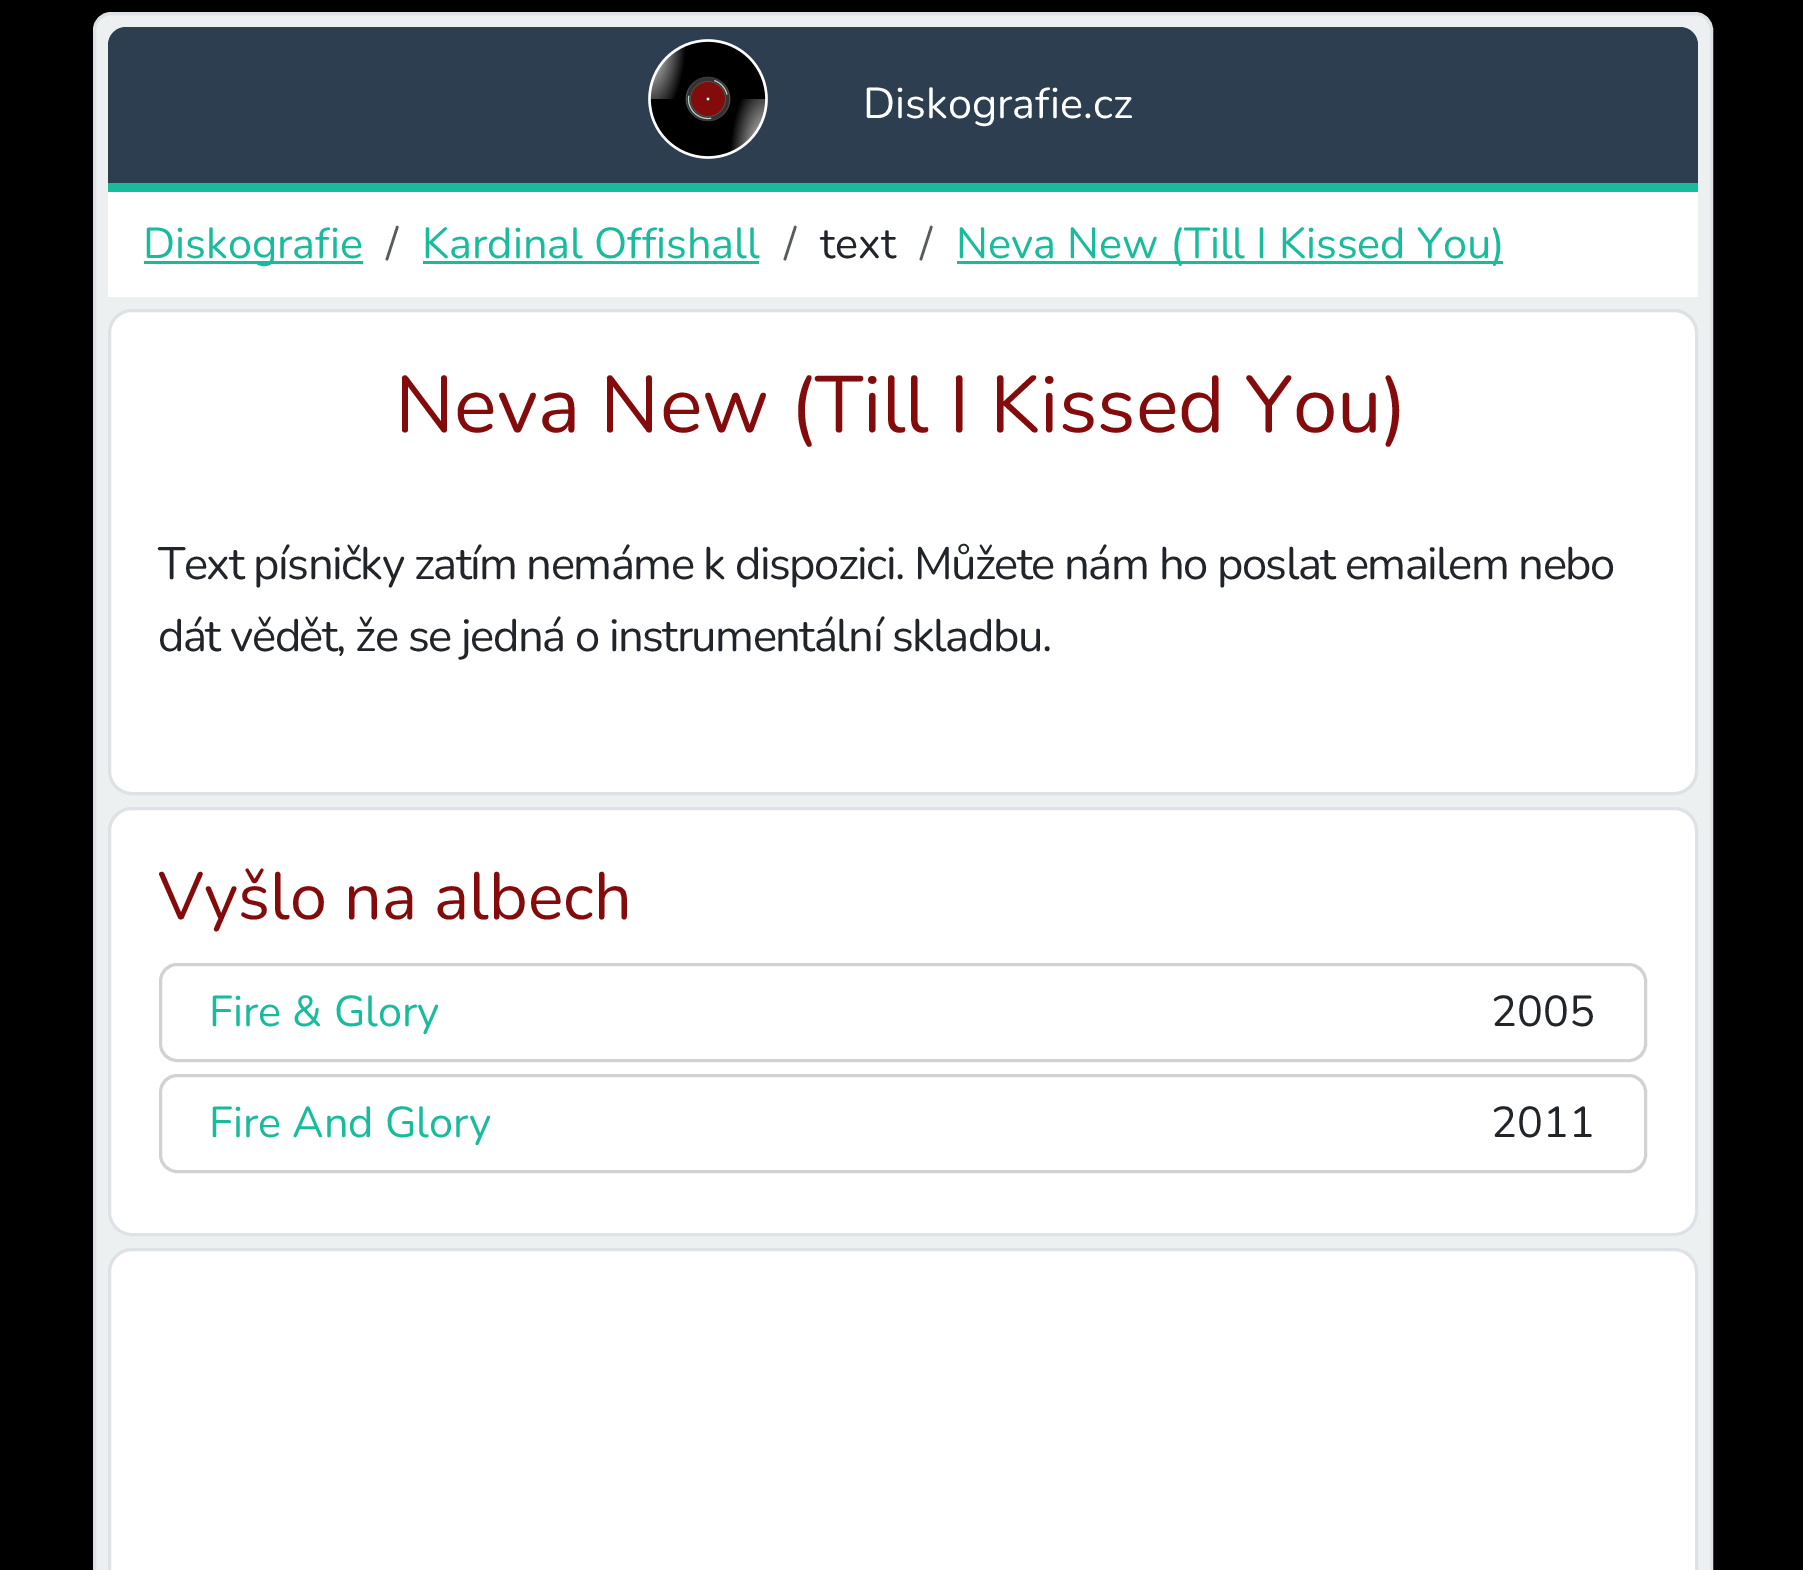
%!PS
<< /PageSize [1803 1570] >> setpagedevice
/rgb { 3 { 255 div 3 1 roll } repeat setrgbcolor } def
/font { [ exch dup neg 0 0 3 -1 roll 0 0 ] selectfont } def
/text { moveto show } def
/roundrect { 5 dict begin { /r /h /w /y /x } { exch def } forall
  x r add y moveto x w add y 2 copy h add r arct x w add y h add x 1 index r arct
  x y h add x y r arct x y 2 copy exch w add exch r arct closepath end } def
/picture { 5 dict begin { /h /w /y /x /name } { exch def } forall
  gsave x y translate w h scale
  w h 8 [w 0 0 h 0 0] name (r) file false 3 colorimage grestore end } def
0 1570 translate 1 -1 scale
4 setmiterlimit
0 0 0 rgb
0 0 1803 1570 rectfill
236 240 241 rgb
94.5 13.5 1617 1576 16.5 roundrect gsave fill grestore
222 226 230 rgb
3 setlinewidth
stroke
44 62 80 rgb
126 27 moveto 1554 0 rlineto 10 0 18 8 18 18 rcurveto 0 147 rlineto -1590 0 rlineto 0 -147 rlineto 0 -10 8 -18 18 -18 rcurveto closepath fill
24 188 156 rgb
108 183 1590 9 rectfill
(img_01.rgb) 648 39 120 120 picture
255 255 255 rgb
108 192 1590 105 rectfill
24 188 156 rgb
144 261 219 3 rectfill
423 261 336 3 rectfill
957 261 546 3 rectfill
255 255 255 rgb
109.5 310.5 1587 483 22.5 roundrect gsave fill grestore
222 226 230 rgb
stroke
255 255 255 rgb
109.5 808.5 1587 426 22.5 roundrect gsave fill grestore
222 226 230 rgb
stroke
210 210 210 rgb
160.5 964.5 1485 96 16.5 roundrect stroke
160.5 1075.5 1485 96 16.5 roundrect stroke
255 255 255 rgb
109.5 1249.5 1587 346 22.5 roundrect gsave fill grestore
222 226 230 rgb
stroke
/Nunito-ExtraLight 43.25 font
255 255 255 rgb
(Diskografie.cz) 863 118 text
24 188 156 rgb
(Diskografie) 143 258 text
89 92 95 rgb
(/) 386 258 text
24 188 156 rgb
(Kardinal Offishall) 422 258 text
89 92 95 rgb
(/) 784 258 text
33 37 41 rgb
(text) 820 258 text
89 92 95 rgb
(/) 920 258 text
24 188 156 rgb
(Neva New \(Till I Kissed You\)) 956 258 text
/Nunito-ExtraLight 79.8 font
131 11 11 rgb
(Neva New \(Till I Kissed You\)) 395 432 text
/Nunito-ExtraLight 45.35 font
33 37 41 rgb
158 579 moveto -1.5 0 (Text písničky zatím nemáme k dispozici. Můžete nám ho poslat emailem nebo) ashow
158 651 moveto -1.5 0 (dát vědět, že se jedná o instrumentální skladbu.) ashow
/Nunito-ExtraLight 66.5 font
131 11 11 rgb
(Vyšlo na albech) 158 919 text
/Nunito-ExtraLight 43.25 font
24 188 156 rgb
(Fire & Glory) 209 1026 text
33 37 41 rgb
(2005) 1491 1026 text
24 188 156 rgb
(Fire And Glory) 209 1137 text
33 37 41 rgb
(2011) 1491 1137 text
showpage
